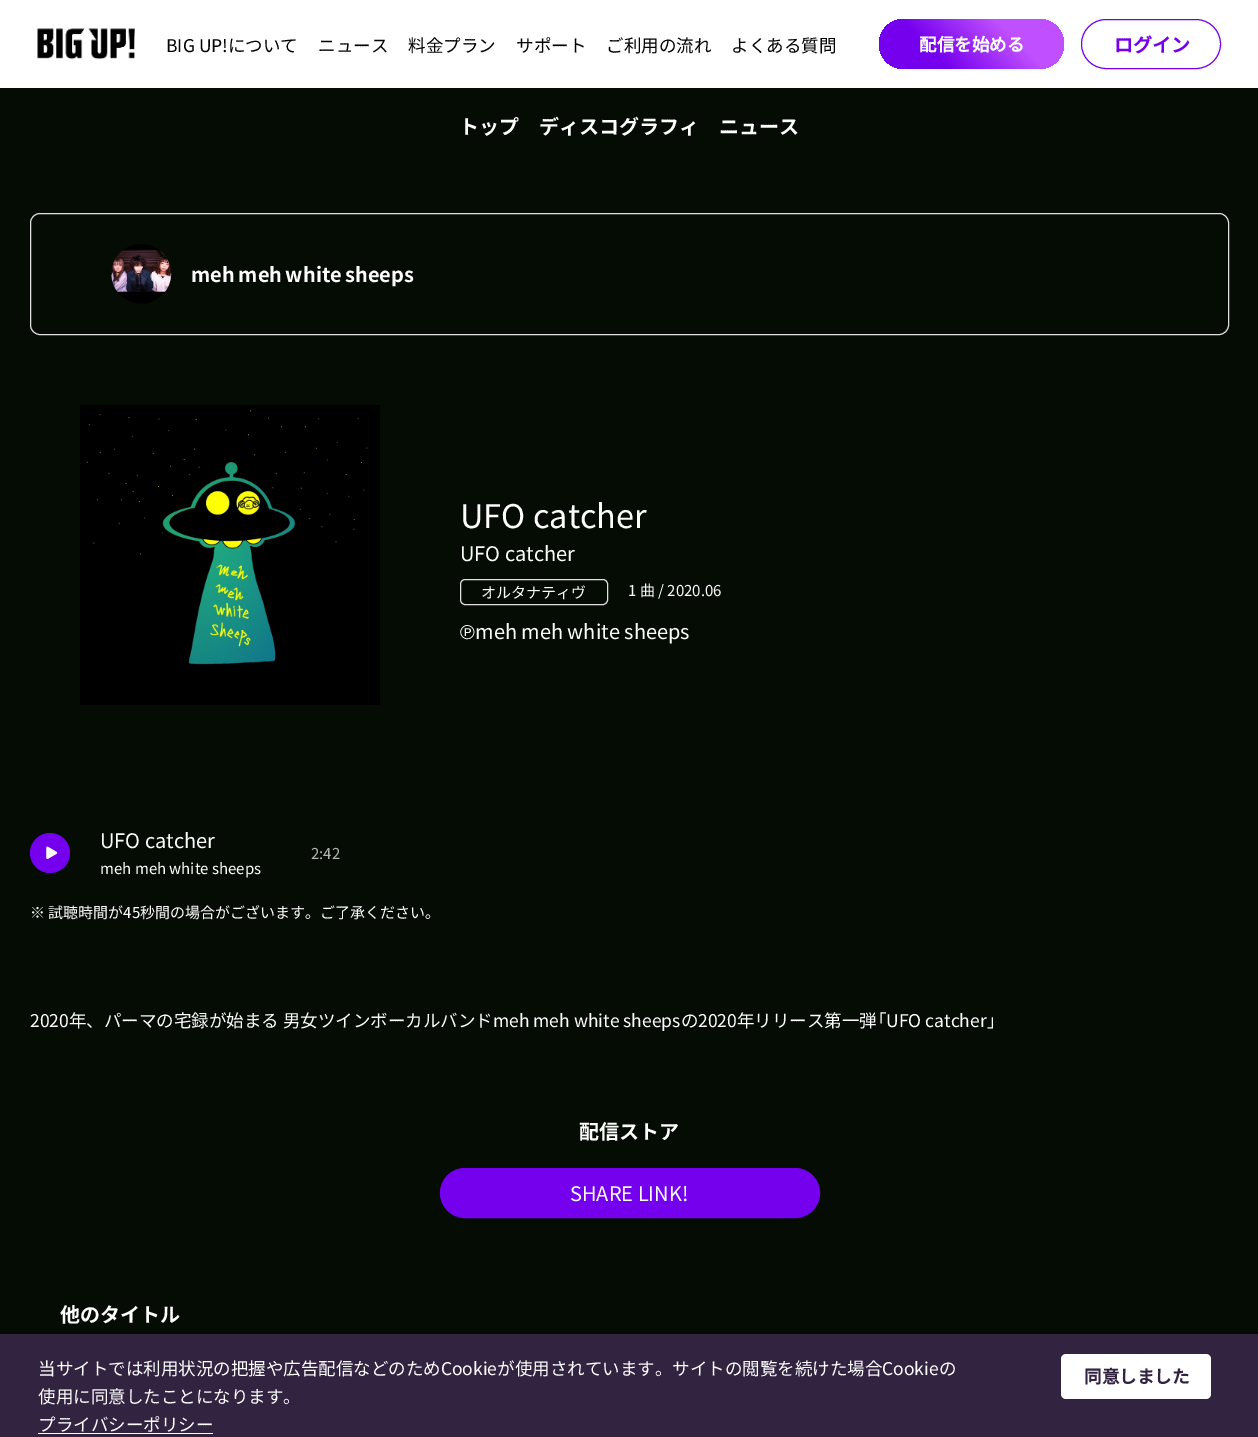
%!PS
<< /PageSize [1258 1437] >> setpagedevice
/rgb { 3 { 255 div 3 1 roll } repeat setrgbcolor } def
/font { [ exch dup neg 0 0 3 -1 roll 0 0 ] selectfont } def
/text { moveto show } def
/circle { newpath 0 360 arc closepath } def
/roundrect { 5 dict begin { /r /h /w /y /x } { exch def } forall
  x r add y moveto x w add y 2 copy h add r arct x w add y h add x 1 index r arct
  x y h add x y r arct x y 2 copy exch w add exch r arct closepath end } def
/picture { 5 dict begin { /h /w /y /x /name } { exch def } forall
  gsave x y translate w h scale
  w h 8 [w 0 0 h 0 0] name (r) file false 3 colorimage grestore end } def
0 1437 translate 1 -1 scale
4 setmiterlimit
5 12 4 rgb
0 0 1258 1437 rectfill
255 255 255 rgb
0 0 1258 88 rectfill
(img_01.rgb) 37 28 98 32 picture
gsave 879 19 185 50 25 roundrect clip newpath
<< /ShadingType 2 /ColorSpace /DeviceRGB /Coords [913 103 1030 -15] /Extend [true true] /Function << /FunctionType 3 /Domain [0 1] /Functions [<< /FunctionType 2 /Domain [0 1] /C0 [0.459 0 0.933] /C1 [0.459 0 0.933] /N 1 >> << /FunctionType 2 /Domain [0 1] /C0 [0.459 0 0.933] /C1 [0.749 0.31 1] /N 1 >> << /FunctionType 2 /Domain [0 1] /C0 [0.749 0.31 1] /C1 [0.749 0.31 1] /N 1 >>] /Bounds [0.3 0.7] /Encode [0 1 0 1 0 1] >> >> shfill grestore
117 0 238 rgb
1081.5 19.5 139 49 24.5 roundrect stroke
224 224 224 rgb
30.5 213.5 1198 121 9.5 roundrect stroke
(img_02.rgb) 111 244 61 60 picture
(img_03.rgb) 80 405 300 300 picture
460.5 579.5 147 25 4.5 roundrect stroke
117 0 238 rgb
50 853 20 circle fill
(img_04.rgb) 46 846 12 13 picture
440.5 1168.5 379 49 24.5 roundrect gsave fill grestore
stroke
50 35 65 rgb
0 1334 1258 103 rectfill
255 255 255 rgb
38 1433 175 1 rectfill
1061 1354 150 45 5 roundrect fill
/NotoSansJP-Regular 17.5 font
0 0 0 rgb
(BIG UP!について) 166 52 text
(ニュース) 318 52 text
(料金プラン) 408 52 text
(サポート) 516 52 text
(ご利用の流れ) 606 52 text
(よくある質問) 731 52 text
/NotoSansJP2-Bold 17.5 font
255 255 255 rgb
(配信を始める) 919 51 text
/NotoSansJP2-Bold 19 font
117 0 238 rgb
(ログイン) 1114 52 text
/NotoSansJP-Bold 20 font
255 255 255 rgb
(トップ) 459 134 text
(ディスコグラフィ) 539 134 text
(ニュース) 719 134 text
191 282 moveto -1 0 32 (meh meh white sheeps) widthshow
/NotoSansJP-Regular 32.5 font
(UFO catcher) 460 528 text
/NotoSansJP-Regular 20 font
(UFO catcher) 460 561 text
/NotoSansJP-Regular 15 font
(オルタナティヴ) 481 598 text
(1 曲 / 2020.06) 628 596 text
/LiberationSans-Regular 20 font
(℗) 460 639 text
/NotoSansJP-Regular 20 font
(meh meh white sheeps) 475 639 text
(UFO catcher) 100 848 text
/NotoSansJP-Regular 15 font
(meh meh white sheeps) 100 874 text
180 182 180 rgb
(2:42) 311 859 text
255 255 255 rgb
(※ 試聴時間が45秒間の場合がございます。ご了承ください。) 30 918 text
/NotoSansJP-Regular 17.5 font
(2020年、パーマの宅録が始まる 男女ツインボーカルバンドmeh meh white sheepsの2020年リリース第一弾) 30 1027 text
/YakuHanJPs-Regular 17.5 font
(「) 877 1027 text
/NotoSansJP-Regular 17.5 font
(UFO catcher) 886 1027 text
/YakuHanJPs-Regular 17.5 font
(」) 987 1027 text
/NotoSansJP-Bold 20 font
(配信ストア) 579 1139 text
/NotoSansJP-Regular 20 font
(SHARE LINK!) 570 1201 text
/NotoSansJP-Bold 20 font
(他のタイトル) 60 1322 text
/NotoSansJP-Regular 17.5 font
(当サイトでは利用状況の把握や広告配信などのためCookieが使用されています。サイトの閲覧を続けた場合Cookieの) 38 1375 text
(使用に同意したことになります。) 38 1403 text
(プライバシーポリシー) 38 1431 text
/NotoSansJP2-Bold 17.5 font
50 35 65 rgb
(同意しました) 1084 1383 text
showpage
